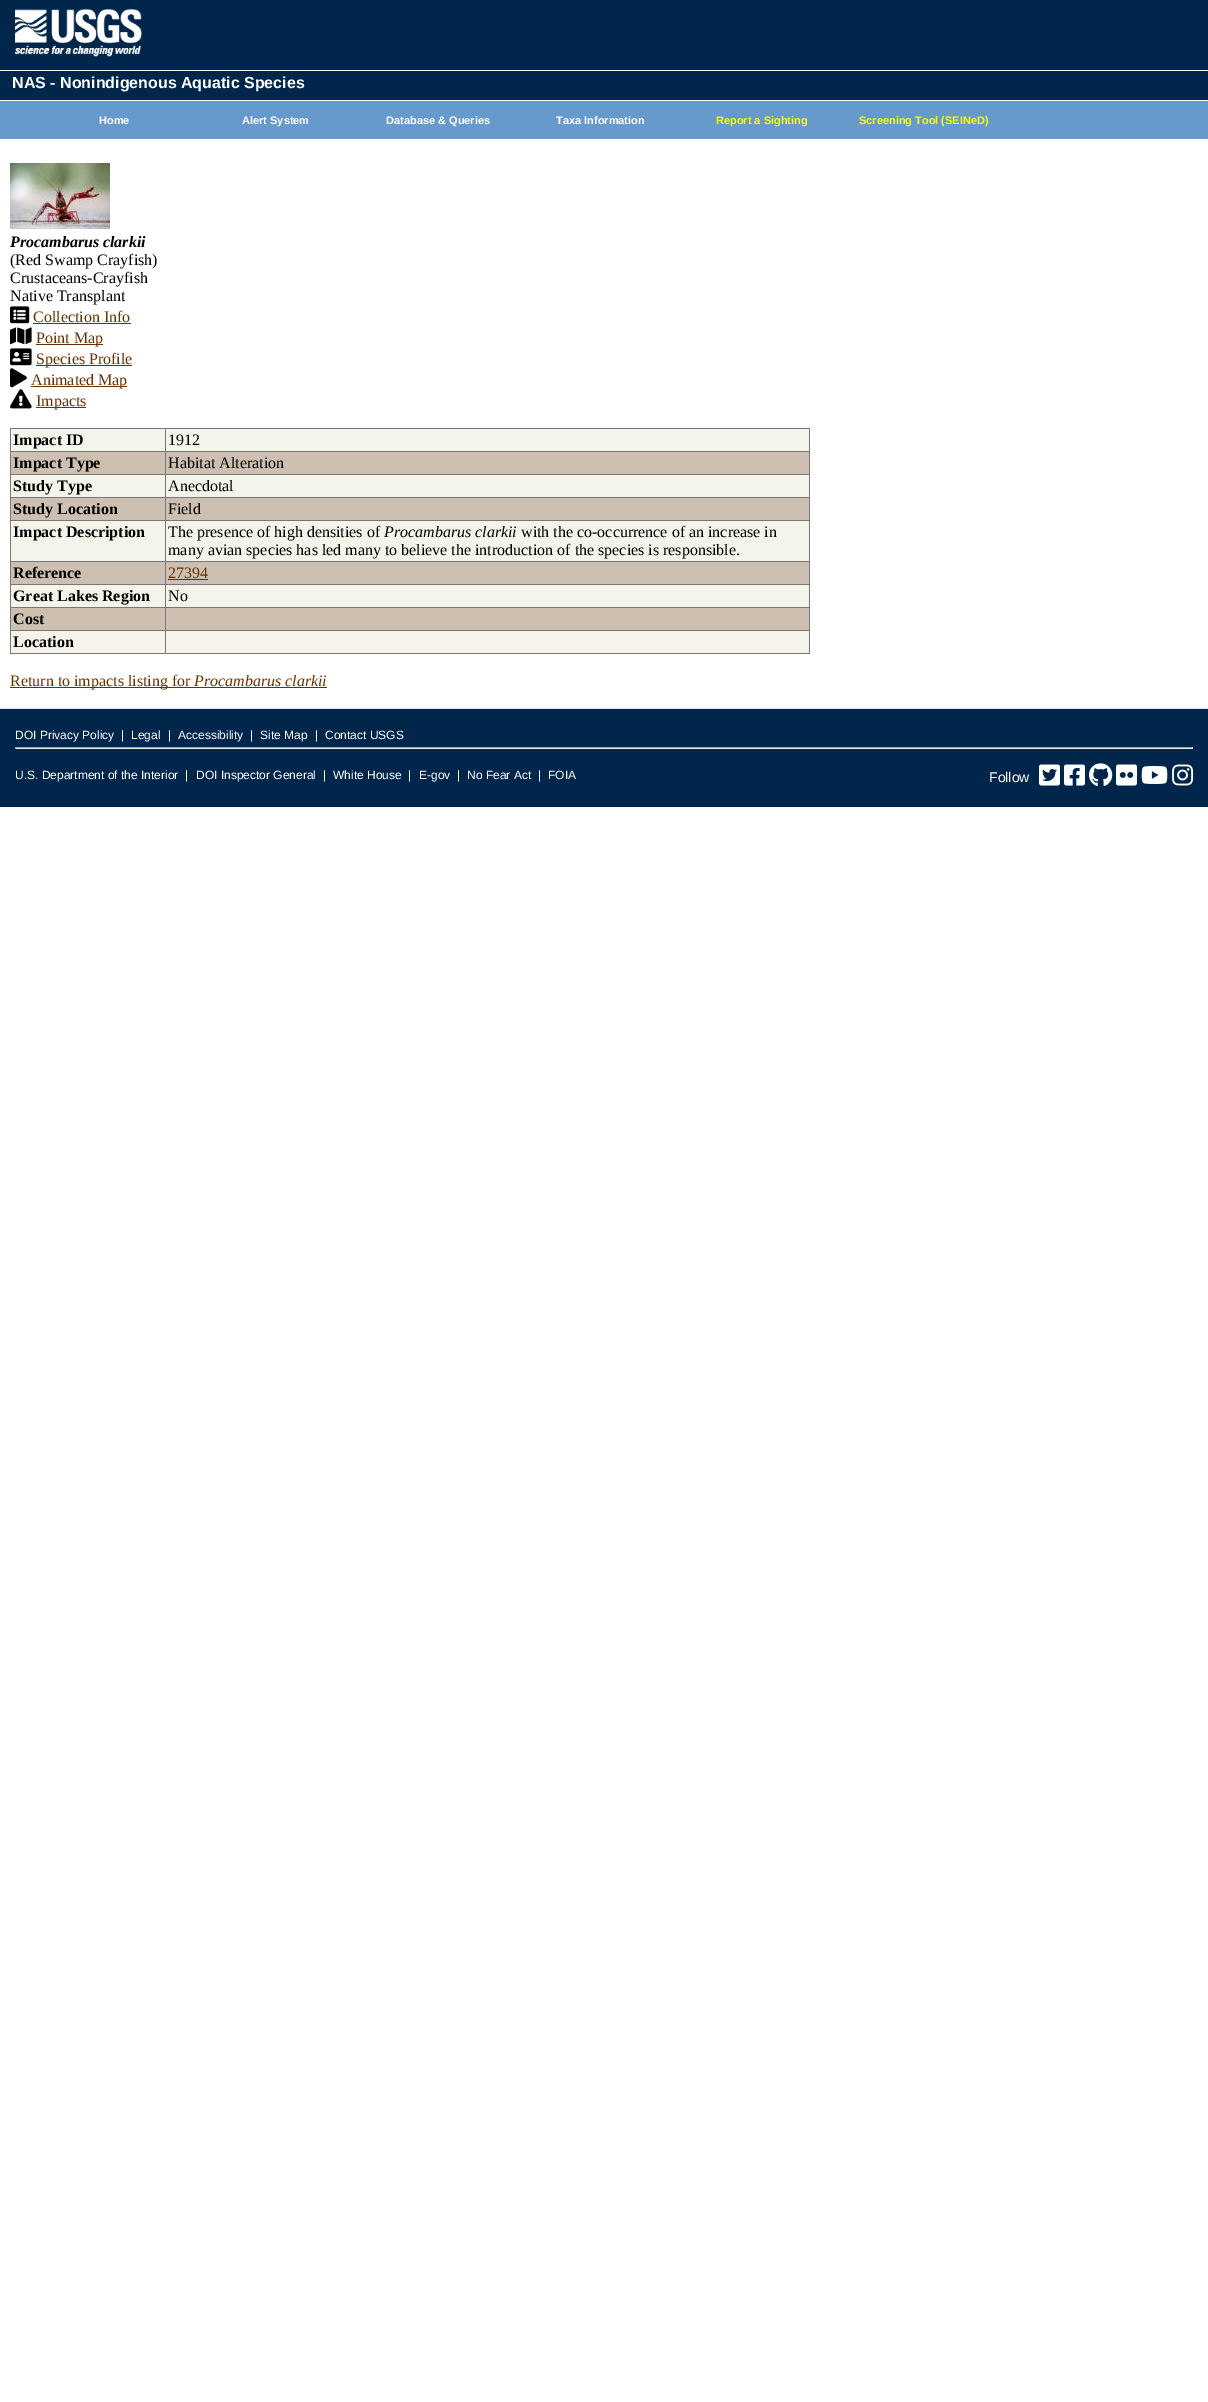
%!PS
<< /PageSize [1208 2402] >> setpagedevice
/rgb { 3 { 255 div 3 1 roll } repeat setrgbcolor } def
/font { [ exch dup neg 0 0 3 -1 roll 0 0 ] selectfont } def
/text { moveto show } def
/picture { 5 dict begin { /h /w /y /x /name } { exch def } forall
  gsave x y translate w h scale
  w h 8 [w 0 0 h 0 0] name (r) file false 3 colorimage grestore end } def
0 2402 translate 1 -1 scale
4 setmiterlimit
255 255 255 rgb
0 0 1208 2402 rectfill
0 38 76 rgb
0 0 1208 70 rectfill
(img_01.rgb) 15 8 127 49 picture
0 71 1208 29 rectfill
102 153 204 rgb
0 101 1208 38 rectfill
(img_02.rgb) 10 163 100 66 picture
(img_03.rgb) 10 306 20 18 picture
102 51 0 rgb
33 323 98 1 rectfill
(img_04.rgb) 10 327 22 18 picture
36 344 67 1 rectfill
(img_05.rgb) 10 348 22 18 picture
36 365 96 1 rectfill
(img_06.rgb) 10 368 17 20 picture
31 386 96 1 rectfill
(img_07.rgb) 10 389 22 20 picture
36 407 50 1 rectfill
244 244 234 rgb
11 429 798 224 rectfill
119 119 119 rgb
10 428 800 1 rectfill
809 428 1 226 rectfill
10 653 800 1 rectfill
10 428 1 226 rectfill
165 451 645 1 rectfill
205 192 176 rgb
11 452 798 22 rectfill
119 119 119 rgb
165 474 645 1 rectfill
165 497 645 1 rectfill
205 192 176 rgb
11 498 798 22 rectfill
119 119 119 rgb
165 520 645 1 rectfill
165 561 645 1 rectfill
205 192 176 rgb
11 562 798 22 rectfill
119 119 119 rgb
165 584 645 1 rectfill
165 607 645 1 rectfill
205 192 176 rgb
11 608 798 22 rectfill
119 119 119 rgb
165 630 645 1 rectfill
165 630 1 24 rectfill
10 630 156 1 rectfill
165 607 1 24 rectfill
10 607 156 1 rectfill
165 584 1 24 rectfill
10 584 156 1 rectfill
165 561 1 24 rectfill
10 561 156 1 rectfill
165 520 1 42 rectfill
10 520 156 1 rectfill
165 497 1 24 rectfill
10 497 156 1 rectfill
165 474 1 24 rectfill
10 474 156 1 rectfill
165 451 1 24 rectfill
10 451 156 1 rectfill
165 428 1 24 rectfill
102 51 0 rgb
168 579 40 1 rectfill
10 687 317 1 rectfill
0 38 76 rgb
0 709 1208 98 rectfill
229 229 229 rgb
0 708 1208 1 rectfill
159 159 159 rgb
15 747 1178 1 rectfill
238 238 238 rgb
1192 747 1 2 rectfill
15 748 1178 1 rectfill
159 159 159 rgb
15 747 1 2 rectfill
(img_08.rgb) 1039 764 21 22 picture
(img_09.rgb) 1064 764 21 22 picture
(img_10.rgb) 1089 763 24 23 picture
(img_11.rgb) 1116 764 21 22 picture
(img_12.rgb) 1141 766 27 18 picture
(img_13.rgb) 1172 764 22 22 picture
/LiberationSans-Bold 16 font
255 255 255 rgb
(NAS - Nonindigenous Aquatic Species) 12 88 text
/LiberationSans-Bold 11 font
(Home) 99 124 text
(Alert System) 242 124 text
(Database & Queries) 386 124 text
(Taxa Information) 556 124 text
255 255 0 rgb
(Report a Sighting) 716 124 text
(Screening Tool \(SEINeD\)) 859 124 text
/LiberationSerif-BoldItalic 16 font
0 0 0 rgb
(Procambarus clarkii) 10 247 text
/LiberationSerif-Regular 16 font
(\(Red Swamp Crayfish\)) 10 265 text
(Crustaceans-Crayfish) 10 283 text
(Native Transplant) 10 301 text
102 51 0 rgb
(Collection Info) 33 322 text
(Point Map) 36 343 text
(Species Profile) 36 364 text
(Animated Map) 31 385 text
(Impacts) 36 406 text
/LiberationSerif-Bold 16 font
0 0 0 rgb
(Impact ID) 13 445 text
/LiberationSerif-Regular 16 font
(1912) 168 445 text
/LiberationSerif-Bold 16 font
(Impact Type) 13 468 text
/LiberationSerif-Regular 16 font
(Habitat Alteration) 168 468 text
/LiberationSerif-Bold 16 font
(Study Type) 13 491 text
/LiberationSerif-Regular 16 font
(Anecdotal) 168 491 text
/LiberationSerif-Bold 16 font
(Study Location) 13 514 text
/LiberationSerif-Regular 16 font
(Field) 168 514 text
/LiberationSerif-Bold 16 font
(Impact Description) 13 537 text
/LiberationSerif-Regular 16 font
(The presence of high densities of) 168 537 text
/LiberationSerif-Italic 16 font
(Procambarus clarkii) 384 537 text
/LiberationSerif-Regular 16 font
(with the co-occurrence of an increase in) 521 537 text
(many avian species has led many to believe the introduction of the species is responsible.) 168 555 text
/LiberationSerif-Bold 16 font
(Reference) 13 578 text
/LiberationSerif-Regular 16 font
102 51 0 rgb
(27394) 168 578 text
/LiberationSerif-Bold 16 font
0 0 0 rgb
(Great Lakes Region) 13 601 text
/LiberationSerif-Regular 16 font
(No) 168 601 text
/LiberationSerif-Bold 16 font
(Cost) 13 624 text
(Location) 13 647 text
/LiberationSerif-Regular 16 font
102 51 0 rgb
(Return to impacts listing for) 10 686 text
/LiberationSerif-Italic 16 font
(Procambarus clarkii) 194 686 text
/LiberationSans-Regular 12 font
255 255 255 rgb
(DOI Privacy Policy) 15 739 text
(|) 121 739 text
(Legal) 131 739 text
(|) 168 739 text
(Accessibility) 178 739 text
(|) 250 739 text
(Site Map) 260 739 text
(|) 315 739 text
(Contact USGS) 325 739 text
(U.S. Department of the Interior) 15 779 text
(|) 185 779 text
(DOI Inspector General) 196 779 text
(|) 323 779 text
(White House) 333 779 text
(|) 408 779 text
(E-gov) 419 779 text
(|) 457 779 text
(No Fear Act) 467 779 text
(|) 538 779 text
(FOIA) 548 779 text
/LiberationSans-Regular 14 font
(Follow) 989 782 text
showpage
